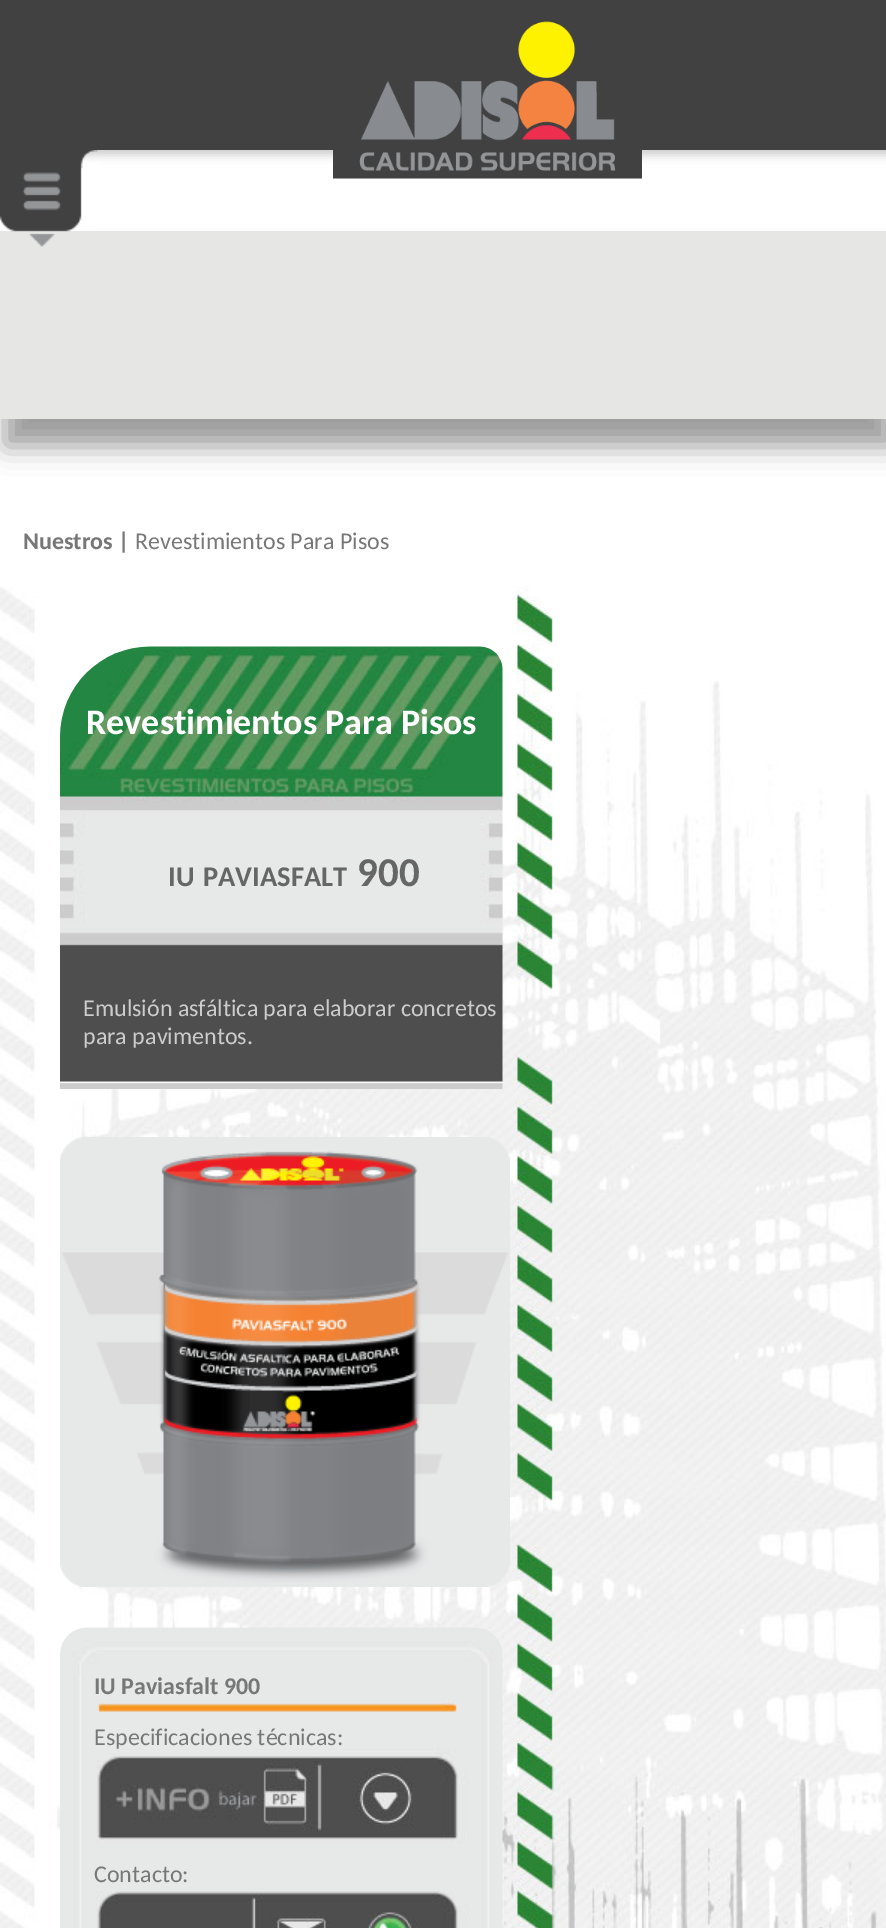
%!PS
<< /PageSize [886 1928] /PageUsesTransparency true >> setpagedevice
/rgb { 3 { 255 div 3 1 roll } repeat setrgbcolor } def
/font { [ exch dup neg 0 0 3 -1 roll 0 0 ] selectfont } def
/text { moveto show } def
/alpha { dup .setfillconstantalpha .setstrokeconstantalpha } def
/roundrect { 5 dict begin { /r /h /w /y /x } { exch def } forall
  x r add y moveto x w add y 2 copy h add r arct x w add y h add x 1 index r arct
  x y h add x y r arct x y 2 copy exch w add exch r arct closepath end } def
/shadow { 12 dict begin { /a /b /q /h /w /y /x } { exch def } forall gsave /was 0 def
  9 -2 -9 { dup b mul 4 div /e exch def 1 sub .425 mul 2.718 exch exp 1 add a .99 .min exch div /now exch def
    1 1 now sub 1 was sub div sub alpha /was now def
    w h .min e 2 mul add 0 gt { x e sub y e sub w e 2 mul add h e 2 mul add
      q e add b .6 mul add w h .min 2 div e add .min 0 .max roundrect fill } if } for grestore end } def
/picture { 5 dict begin { /h /w /y /x /name } { exch def } forall
  gsave x y translate w h scale
  w h 8 [w 0 0 h 0 0] name (r) file false 3 colorimage grestore end } def
0 .pushpdf14devicefilter
0 1928 translate 1 -1 scale
4 setmiterlimit
255 255 255 rgb
0 0 886 1928 rectfill
(img_01.rgb) 0 150 886 436 picture
204 204 204 rgb
5 5 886 150 0 4.5 1 shadow
65 65 66 rgb
0 0 886 150 rectfill
(img_02.rgb) 333 21 309 158 picture
153 153 153 rgb
5 258 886 188 0 13.5 1 shadow
230 230 229 rgb
0 231 886 188 rectfill
(img_03.rgb) 0 150 98 97 picture
(img_04.rgb) 0 586 886 1342 picture
(img_05.rgb) 59 646 444 443 picture
(img_06.rgb) 60 1137 450 450 picture
(img_07.rgb) 60 1627 443 301 picture
(img_08.rgb) 354 1767 60 60 picture
(img_09.rgb) 270 1915 59 13 picture
(img_10.rgb) 368 1912 49 16 picture
/Carlito-Bold 24 font
119 119 119 rgb
(Nuestros |) 23 549 text
/Carlito-Regular 24 font
(Revestimientos Para Pisos) 135 549 text
/Carlito-Bold 36 font
255 255 255 rgb
(Revestimientos Para Pisos) 86 734 text
/Carlito-Bold 28.5 font
102 102 102 rgb
(IU) 168 886 text
(PAVIASFALT) 203 886 text
/Carlito-Bold 41 font
(900) 357 886 text
/Carlito-Regular 24 font
204 204 204 rgb
(Emulsión asfáltica para elaborar concretos) 83 1016 text
(para pavimentos.) 83 1044 text
/Carlito-Bold 24 font
119 119 119 rgb
(IU Paviasfalt 900) 94 1694 text
/Carlito-Regular 24 font
(Especificaciones técnicas:) 94 1745 text
(Contacto:) 94 1882 text
.poppdf14devicefilter showpage
